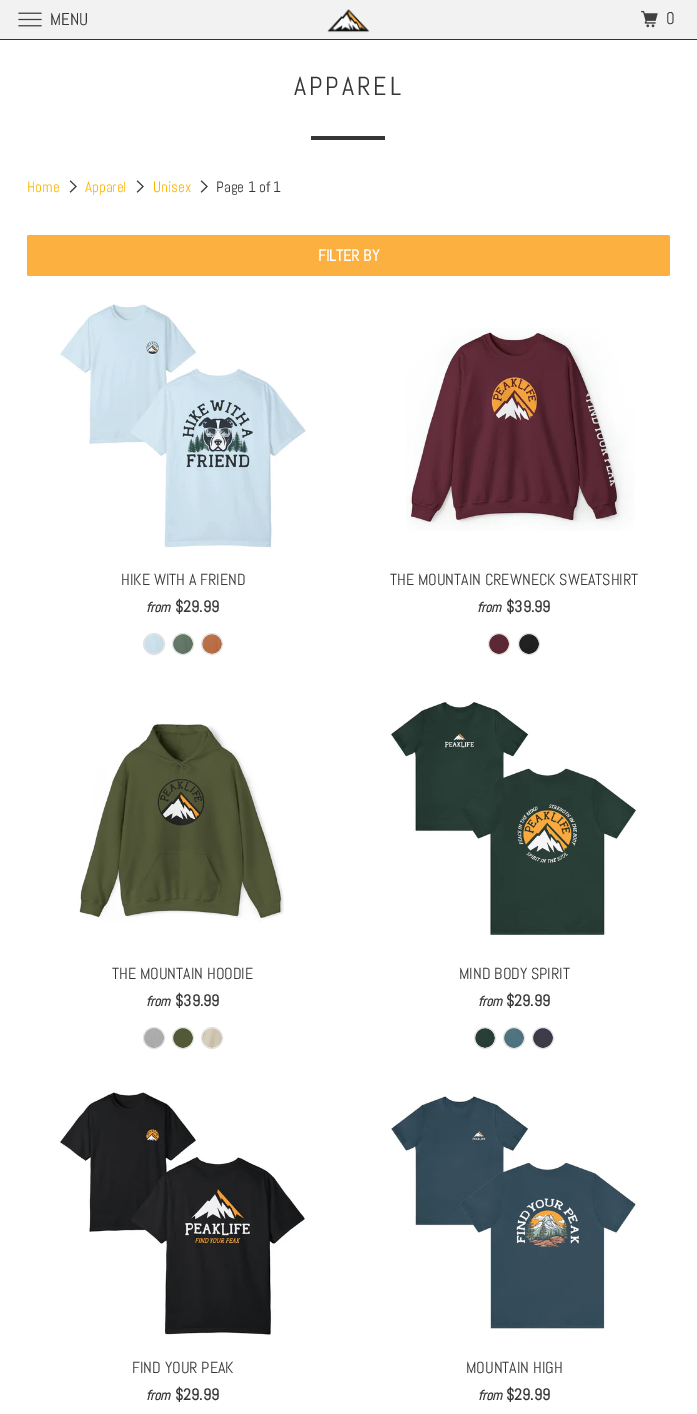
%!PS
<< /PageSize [697 1414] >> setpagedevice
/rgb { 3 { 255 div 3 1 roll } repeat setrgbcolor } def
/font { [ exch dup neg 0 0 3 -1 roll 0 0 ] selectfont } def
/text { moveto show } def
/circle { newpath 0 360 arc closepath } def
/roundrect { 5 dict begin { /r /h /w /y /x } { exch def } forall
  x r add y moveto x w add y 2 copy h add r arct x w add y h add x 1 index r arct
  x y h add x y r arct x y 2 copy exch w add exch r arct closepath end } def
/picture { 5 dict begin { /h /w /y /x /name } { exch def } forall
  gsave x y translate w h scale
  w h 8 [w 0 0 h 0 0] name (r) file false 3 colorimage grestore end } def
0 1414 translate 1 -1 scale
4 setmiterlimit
255 255 255 rgb
0 0 697 1414 rectfill
242 242 242 rgb
0 0 697 39 rectfill
51 51 51 rgb
0 39 697 1 rectfill
(img_01.rgb) 18 12 24 15 picture
(img_02.rgb) 327 9 43 24 picture
(img_03.rgb) 641 10 17 18 picture
54 54 54 rgb
311 136 74 4 rectfill
(img_04.rgb) 69 180 8 13 picture
(img_04.rgb) 136 180 8 13 picture
(img_04.rgb) 200 180 8 13 picture
251 176 64 rgb
27 235 643 41 2 roundrect fill
(img_05.rgb) 60 304 248 247 picture
(img_06.rgb) 144 634 20 20 picture
226 226 226 rgb
154 644 10.5 circle stroke
(img_07.rgb) 173 634 20 20 picture
183 644 10.5 circle stroke
(img_08.rgb) 202 634 20 20 picture
212 644 10.5 circle stroke
(img_09.rgb) 406 328 228 203 picture
(img_10.rgb) 489 634 20 20 picture
499 644 10.5 circle stroke
(img_11.rgb) 519 634 20 20 picture
529 644 10.5 circle stroke
(img_12.rgb) 78 723 206 199 picture
(img_13.rgb) 144 1028 20 20 picture
154 1038 10.5 circle stroke
(img_14.rgb) 173 1028 20 20 picture
183 1038 10.5 circle stroke
(img_15.rgb) 202 1028 20 20 picture
212 1038 10.5 circle stroke
(img_16.rgb) 391 700 246 235 picture
(img_17.rgb) 475 1028 20 20 picture
485 1038 10.5 circle stroke
(img_18.rgb) 504 1028 20 20 picture
514 1038 10.5 circle stroke
(img_19.rgb) 533 1028 20 20 picture
543 1038 10.5 circle stroke
(img_20.rgb) 59 1092 246 244 picture
(img_21.rgb) 390 1096 249 233 picture
/Abel-Regular 17 font
54 54 54 rgb
(MENU) 50 25 text
(0) 666 24 text
/Abel-Regular 26 font
294 95 moveto 3 0 (APPAREL) ashow
/Abel-Regular 15 font
255 180 0 rgb
(Home) 27 192 text
(Apparel) 85 192 text
(Unisex) 153 192 text
54 54 54 rgb
(Page 1 of 1) 216 192 text
/Abel-Bold 16 font
255 255 255 rgb
(FILTER BY) 318 261 text
/Abel-Regular 16 font
54 54 54 rgb
(HIKE WITH A FRIEND) 121 585 text
/Abel-BoldItalic 14 font
(from) 146 612 text
/Abel-Bold 16 font
($29.99) 175 612 text
/Abel-Regular 16 font
(THE MOUNTAIN CREWNECK SWEATSHIRT) 390 585 text
/Abel-BoldItalic 14 font
(from) 477 612 text
/Abel-Bold 16 font
($39.99) 506 612 text
/Abel-Regular 16 font
(THE MOUNTAIN HOODIE) 112 979 text
/Abel-BoldItalic 14 font
(from) 146 1006 text
/Abel-Bold 16 font
($39.99) 175 1006 text
/Abel-Regular 16 font
(MIND BODY SPIRIT) 459 979 text
/Abel-BoldItalic 14 font
(from) 478 1006 text
/Abel-Bold 16 font
($29.99) 506 1006 text
/Abel-Regular 16 font
(FIND YOUR PEAK) 132 1373 text
/Abel-BoldItalic 14 font
(from) 146 1400 text
/Abel-Bold 16 font
($29.99) 175 1400 text
/Abel-Regular 16 font
(MOUNTAIN HIGH) 466 1373 text
/Abel-BoldItalic 14 font
(from) 478 1400 text
/Abel-Bold 16 font
($29.99) 506 1400 text
showpage
